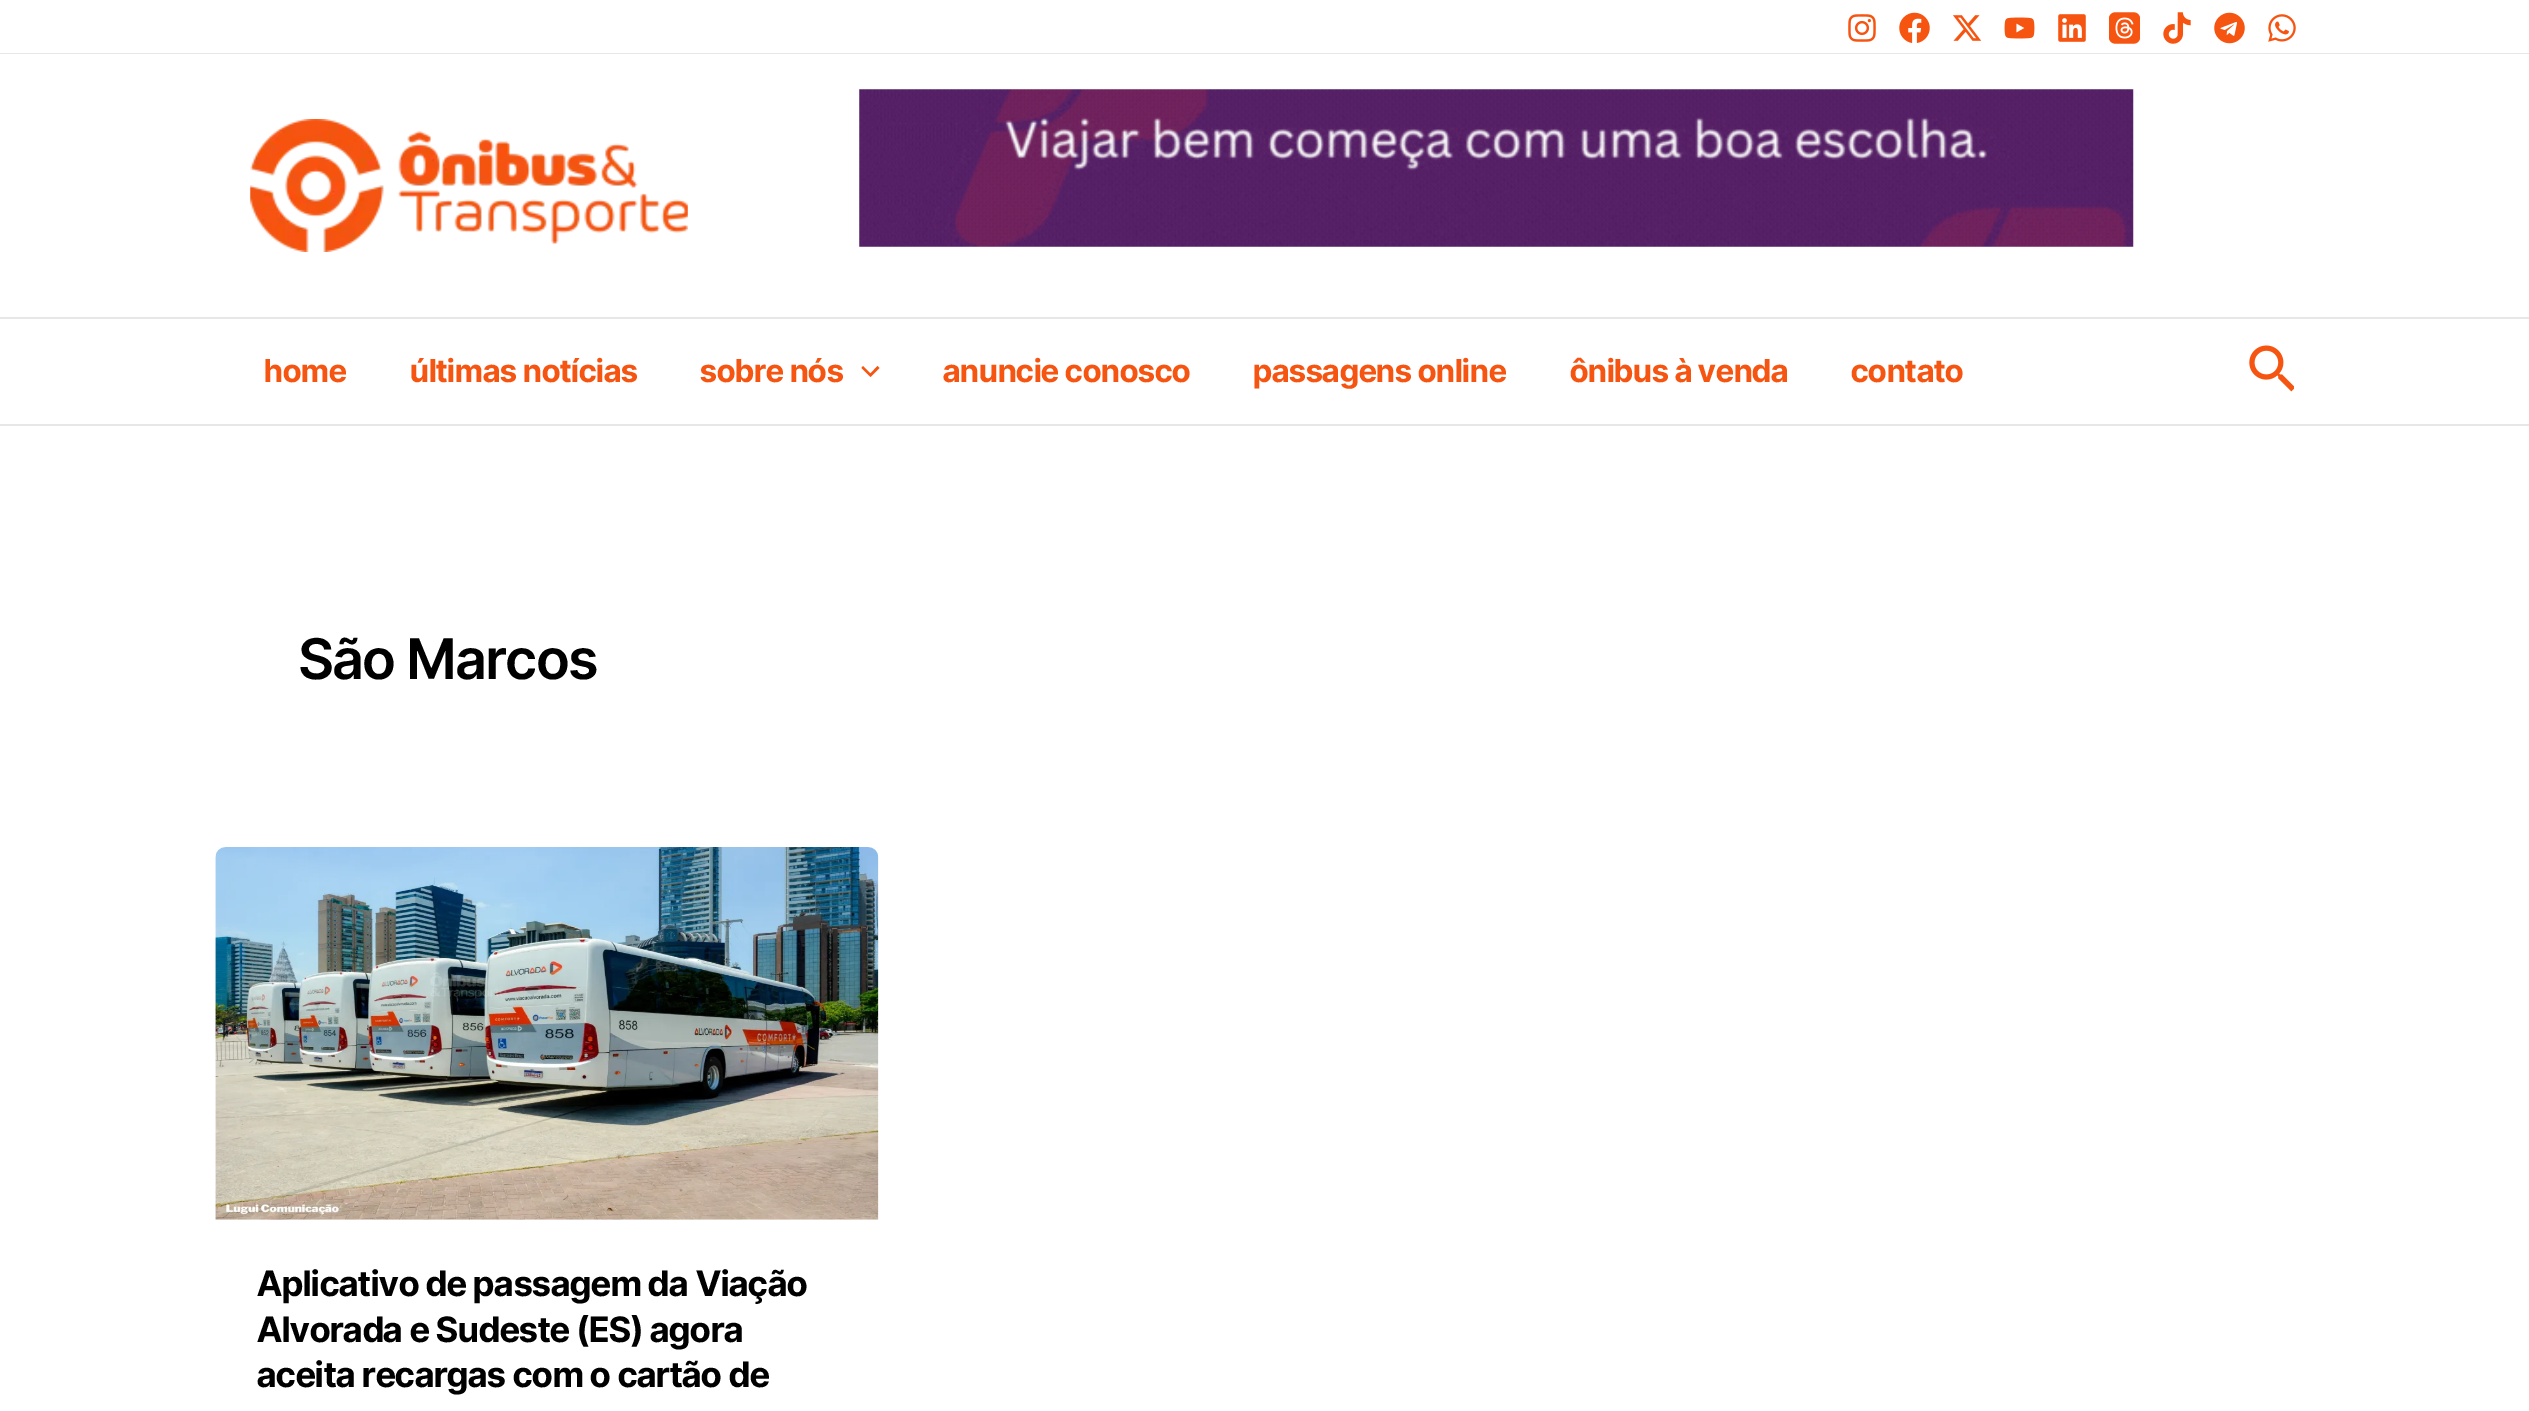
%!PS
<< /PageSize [2529 1411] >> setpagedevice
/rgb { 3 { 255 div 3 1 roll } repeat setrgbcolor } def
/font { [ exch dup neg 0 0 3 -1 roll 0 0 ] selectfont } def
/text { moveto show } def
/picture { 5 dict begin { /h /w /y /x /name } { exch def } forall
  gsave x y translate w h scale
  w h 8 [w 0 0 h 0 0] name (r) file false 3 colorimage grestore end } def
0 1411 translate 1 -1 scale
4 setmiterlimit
255 255 255 rgb
0 0 2529 1411 rectfill
231 231 231 rgb
0 53 2529 1 rectfill
(img_01.rgb) 1848 14 28 28 picture
(img_02.rgb) 1899 12 31 31 picture
(img_03.rgb) 1953 15 29 26 picture
(img_04.rgb) 2004 17 31 22 picture
(img_05.rgb) 2058 14 28 28 picture
(img_06.rgb) 2109 12 31 32 picture
(img_07.rgb) 2163 12 28 32 picture
(img_08.rgb) 2214 12 31 32 picture
(img_09.rgb) 2268 14 28 28 picture
0 317 2529 2 rectfill
(img_10.rgb) 250 119 438 133 picture
(img_11.rgb) 859 89 1275 158 picture
0 424 2529 2 rectfill
246 84 17 rgb
861.5 368 moveto 9 9 rlineto 9 -9 rlineto -2 -2 rlineto -7 7.5 rlineto -7.5 -7.5 rlineto closepath fill
(img_12.rgb) 2249 345 45 47 picture
(img_13.rgb) 215 847 664 373 picture
/InterTight-Bold 31.5 font
(home) 264 382 text
(últimas notícias) 410 382 text
(sobre nós) 700 382 text
(anuncie conosco) 943 382 text
(passagens online) 1253 382 text
(ônibus à venda) 1570 382 text
(contato) 1851 382 text
/InterTight-SemiBold 56 font
0 0 0 rgb
(São Marcos) 299 679 text
/InterTight-Bold 35 font
(Aplicativo de passagem da Viação) 257 1296 text
(Alvorada e Sudeste \(ES\) agora) 257 1342 text
(aceita recargas com o cartão de) 257 1387 text
showpage
